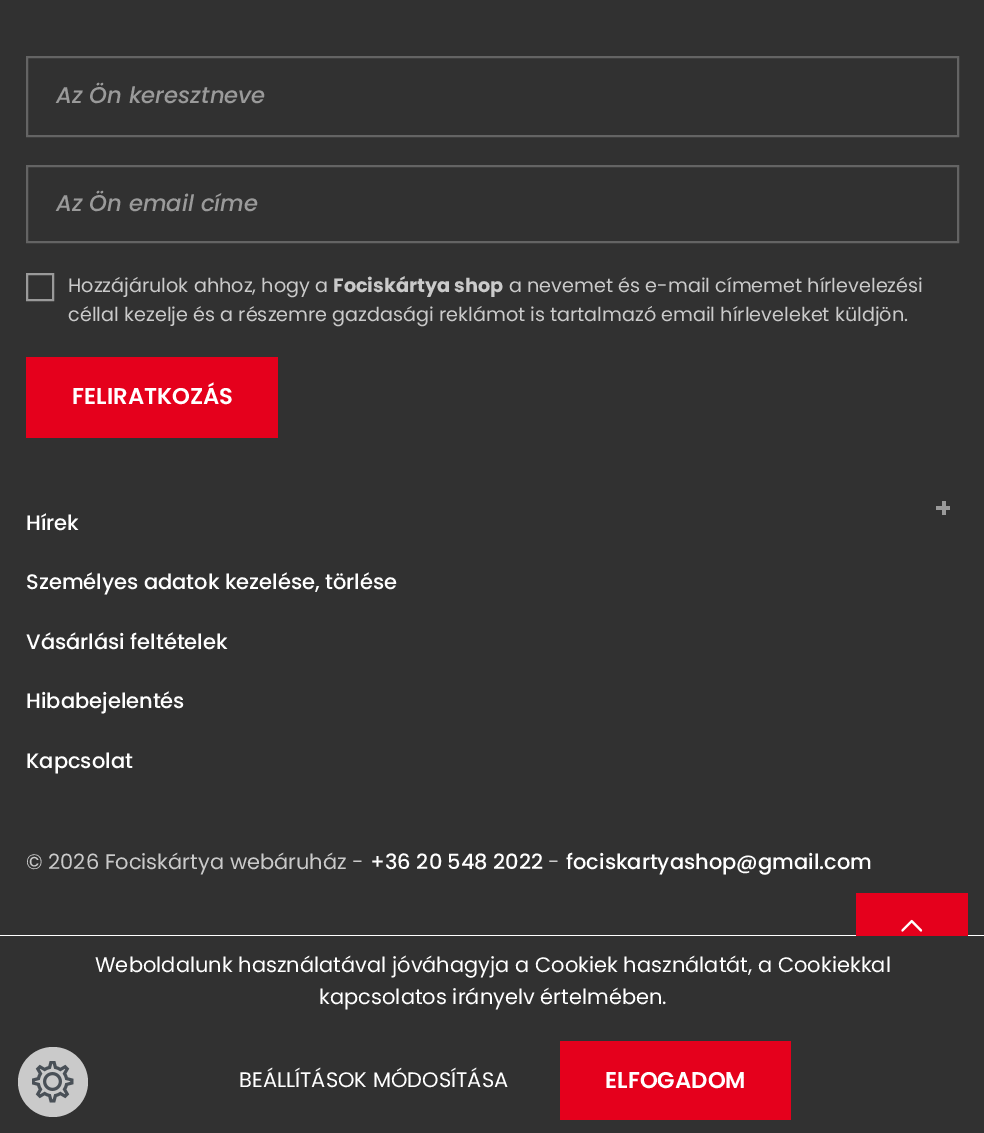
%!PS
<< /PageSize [984 1133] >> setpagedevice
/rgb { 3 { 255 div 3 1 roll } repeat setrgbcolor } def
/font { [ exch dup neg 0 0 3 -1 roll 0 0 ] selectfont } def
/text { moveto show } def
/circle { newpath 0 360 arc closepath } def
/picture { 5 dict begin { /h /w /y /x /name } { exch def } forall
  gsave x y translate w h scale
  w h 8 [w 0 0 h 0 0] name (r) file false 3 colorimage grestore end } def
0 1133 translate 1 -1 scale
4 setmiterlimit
255 255 255 rgb
0 0 984 1133 rectfill
49 49 49 rgb
0 0 984 935 rectfill
100 100 100 rgb
2 setlinewidth
27 57 931 79 rectstroke
27 166 931 76 rectstroke
154 154 154 rgb
27 274 26 26 rectstroke
229 0 28 rgb
26 357 252 81 rectfill
154 154 154 rgb
942 501 4 14 rectfill
936 506 14 4 rectfill
229 0 28 rgb
856 893 112 43 rectfill
(img_01.rgb) 901 919 22 13 picture
49 49 49 rgb
0 936 984 197 rectfill
202 202 202 rgb
53 1082 35 circle fill
(img_02.rgb) 32 1061 42 42 picture
229 0 28 rgb
560 1041 231 79 rectfill
/Poppins-MediumItalic 22.75 font
154 154 154 rgb
(Az Ön keresztneve) 56 103 text
(Az Ön email címe) 56 211 text
/Poppins-Regular 19.25 font
202 202 202 rgb
(Hozzájárulok ahhoz, hogy a) 68 292 text
/Poppins-Bold 19.25 font
(Fociskártya shop) 333 292 text
/Poppins-Regular 19.25 font
(a nevemet és e-mail címemet hírlevelezési) 509 292 text
(céllal kezelje és a részemre gazdasági reklámot is tartalmazó email hírleveleket küldjön.) 68 321 text
/Poppins-SemiBold 22.75 font
255 255 255 rgb
(FELIRATKOZÁS) 72 404 text
/Poppins-Medium 21 font
(Hírek) 26 530 text
(Személyes adatok kezelése, törlése) 26 589 text
(Vásárlási feltételek) 26 649 text
(Hibabejelentés) 26 708 text
(Kapcsolat) 26 768 text
/Poppins-Regular 21 font
202 202 202 rgb
(© 2026 Fociskártya webáruház -) 26 869 text
/Poppins-Medium 21 font
255 255 255 rgb
(+36 20 548 2022) 370 869 text
/Poppins-Regular 21 font
202 202 202 rgb
(-) 548 869 text
/Poppins-Medium 21 font
255 255 255 rgb
(fociskartyashop@gmail.com) 566 869 text
/Poppins-Regular 21 font
(Weboldalunk használatával jóváhagyja a Cookiek használatát, a Cookiekkal) 95 972 text
(kapcsolatos irányelv értelmében.) 319 1004 text
(BEÁLLÍTÁSOK MÓDOSÍTÁSA) 239 1087 text
/Poppins-SemiBold 22.75 font
(ELFOGADOM) 605 1088 text
showpage
